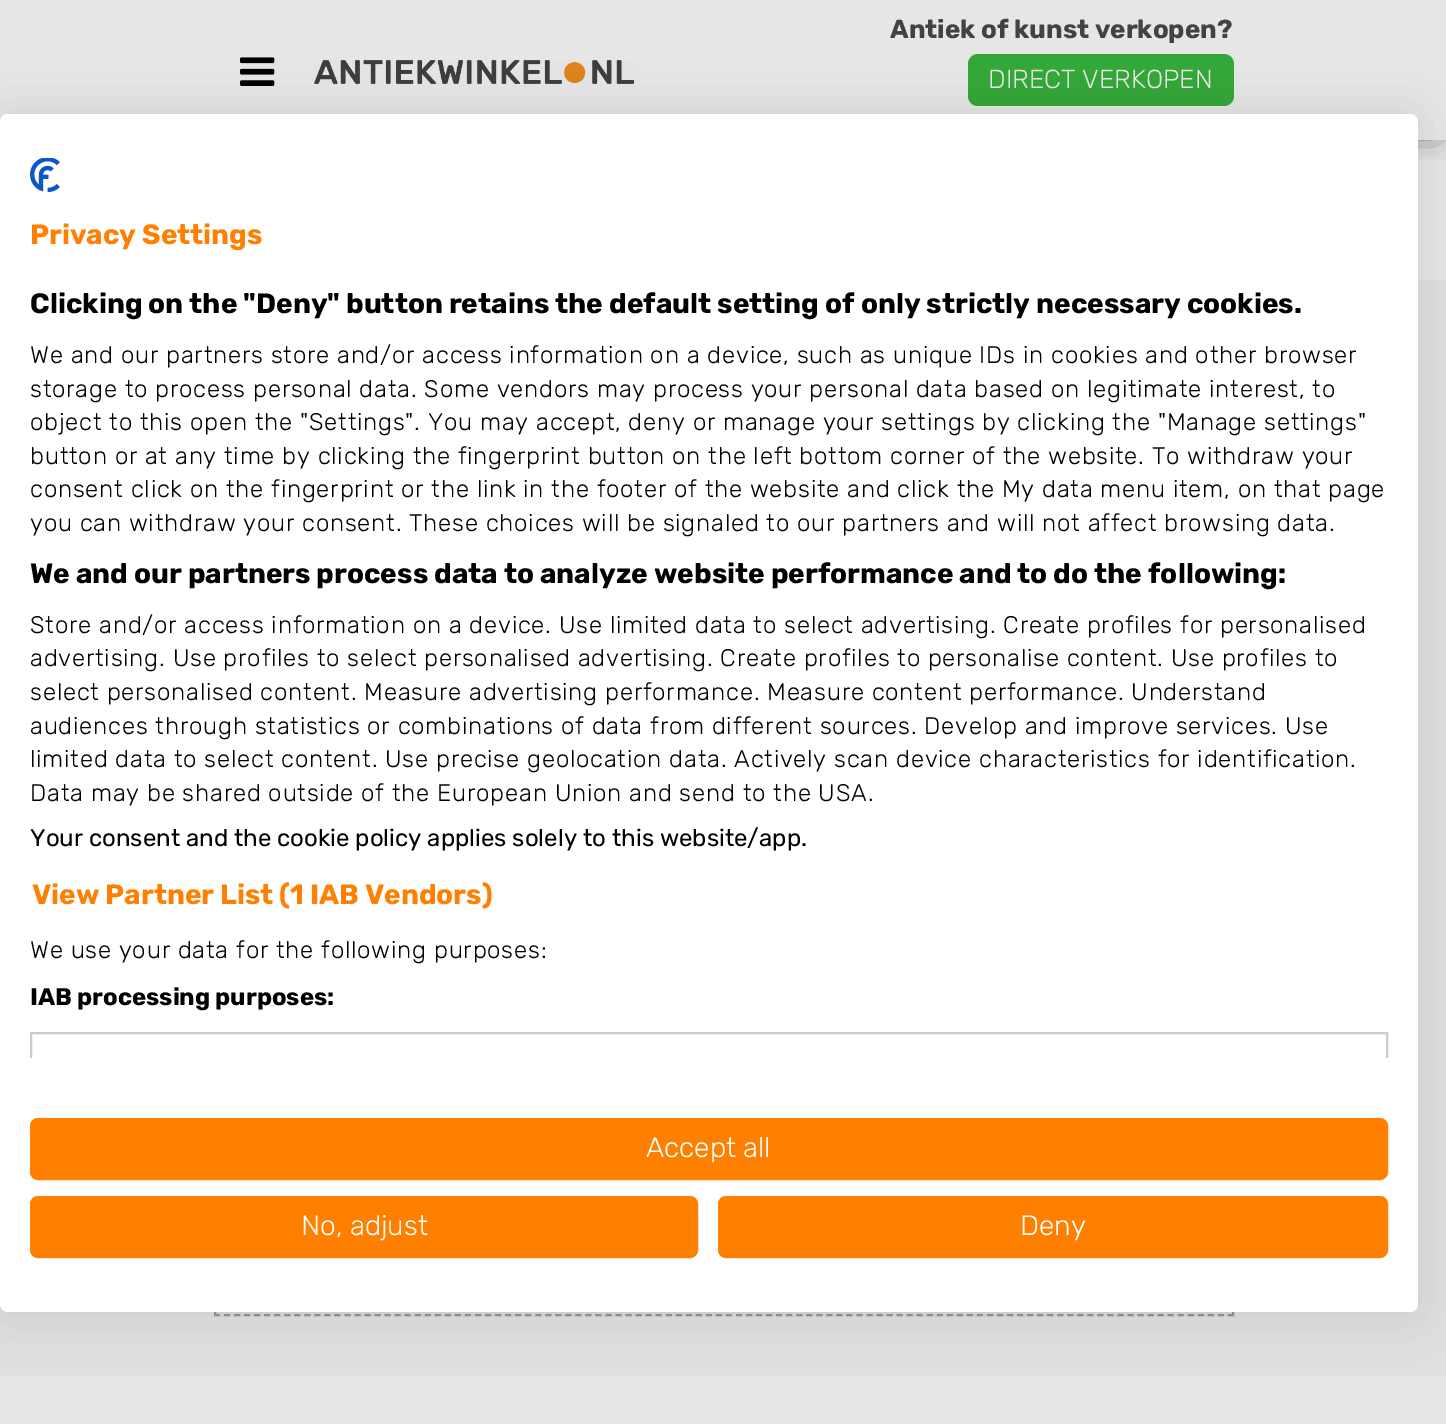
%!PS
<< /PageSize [1446 1424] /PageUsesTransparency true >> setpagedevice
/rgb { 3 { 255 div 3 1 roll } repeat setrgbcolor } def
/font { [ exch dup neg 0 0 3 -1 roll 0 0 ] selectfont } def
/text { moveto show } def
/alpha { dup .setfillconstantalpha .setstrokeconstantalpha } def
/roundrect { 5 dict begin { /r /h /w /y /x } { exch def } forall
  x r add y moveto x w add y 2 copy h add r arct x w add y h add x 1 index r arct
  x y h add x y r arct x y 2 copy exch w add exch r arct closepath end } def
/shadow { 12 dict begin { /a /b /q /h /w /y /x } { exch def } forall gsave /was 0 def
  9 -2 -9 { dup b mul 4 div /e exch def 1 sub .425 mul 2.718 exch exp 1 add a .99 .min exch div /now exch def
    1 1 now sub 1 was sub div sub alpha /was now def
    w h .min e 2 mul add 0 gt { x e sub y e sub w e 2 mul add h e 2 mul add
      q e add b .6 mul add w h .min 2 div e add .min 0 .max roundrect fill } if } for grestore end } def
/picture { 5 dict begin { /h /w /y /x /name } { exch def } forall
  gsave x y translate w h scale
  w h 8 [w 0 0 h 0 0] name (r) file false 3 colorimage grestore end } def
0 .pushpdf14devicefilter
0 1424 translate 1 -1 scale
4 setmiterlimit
230 230 230 rgb
0 0 1446 1424 rectfill
gsave
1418 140 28 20 rectclip
46 46 46 rgb
10 10 1426 120 0 15 1 shadow
grestore
(img_01.rgb) 240 57 35 29 picture
(img_02.rgb) 314 60 320 24 picture
51 168 56 rgb
968 54 266 52 10 roundrect fill
223 223 223 rgb
0 280 1446 1096 rectfill
219 219 219 rgb
216 1312 1016 4 rectfill
149 149 149 rgb
2 setlinewidth
[6 3.96] 0 setdash
1233 732 moveto 0 584 rlineto stroke
[6 4.04] 0 setdash
214 1315 moveto 1020 0 rlineto stroke
[6 3.96] 0 setdash
215 732 moveto 0 584 rlineto stroke
0 0 0 rgb
0 114 1418 1198 8 24 0.1 shadow
255 255 255 rgb
0 114 1418 1198 8 roundrect fill
(img_03.rgb) 30 158 30 35 picture
gsave
0 158 1418 900 rectclip
204 204 204 rgb
[] 0 setdash
31 1033 1356 68 rectstroke
grestore
255 128 0 rgb
31 1119 1356 60 7 roundrect gsave fill grestore
[] 0 setdash
stroke
31 1197 666 60 7 roundrect gsave fill grestore
stroke
719 1197 668 60 7 roundrect gsave fill grestore
stroke
/Rubik-Bold 26 font
65 67 65 rgb
(Antiek of kunst verkopen?) 890 38 text
/Rubik-Light 26 font
230 230 230 rgb
(DIRECT VERKOPEN) 988 88 text
/Rubik-Bold 28 font
255 128 0 rgb
(Privacy Settings) 30 244 text
0 0 0 rgb
(Clicking on the "Deny" button retains the default setting of only strictly necessary cookies.) 30 313 text
/Rubik-Light 24 font
30 363 moveto 0.8 0 (We and our partners store and/or access information on a device, such as unique IDs in cookies and other browser) ashow
30 397 moveto 0.8 0 (storage to process personal data. Some vendors may process your personal data based on legitimate interest, to) ashow
30 430 moveto 0.8 0 (object to this open the "Settings". You may accept, deny or manage your settings by clicking the "Manage settings") ashow
30 464 moveto 0.8 0 (button or at any time by clicking the fingerprint button on the left bottom corner of the website. To withdraw your) ashow
30 497 moveto 0.8 0 (consent click on the fingerprint or the link in the footer of the website and click the My data menu item, on that page) ashow
30 531 moveto 0.8 0 (you can withdraw your consent. These choices will be signaled to our partners and will not affect browsing data.) ashow
/Rubik-Bold 28 font
(We and our partners process data to analyze website performance and to do the following:) 30 583 text
/Rubik-Light 24 font
30 633 moveto 0.8 0 (Store and/or access information on a device. Use limited data to select advertising. Create profiles for personalised) ashow
30 666 moveto 0.8 0 (advertising. Use profiles to select personalised advertising. Create profiles to personalise content. Use profiles to) ashow
30 700 moveto 0.8 0 (select personalised content. Measure advertising performance. Measure content performance. Understand) ashow
30 734 moveto 0.8 0 (audiences through statistics or combinations of data from different sources. Develop and improve services. Use) ashow
30 767 moveto 0.8 0 (limited data to select content. Use precise geolocation data. Actively scan device characteristics for identification.) ashow
30 801 moveto 0.8 0 (Data may be shared outside of the European Union and send to the USA.) ashow
/Rubik-Regular 24 font
(Your consent and the cookie policy applies solely to this website/app.) 30 846 text
/Rubik-Bold 28 font
255 128 0 rgb
(View Partner List \(1 IAB Vendors\)) 32 904 text
/Rubik-Light 24 font
0 0 0 rgb
30 958 moveto 0.8 0 (We use your data for the following purposes:) ashow
/Rubik-Bold 24 font
(IAB processing purposes:) 30 1005 text
/Rubik-Light 28 font
255 255 255 rgb
(Accept all) 646 1157 text
(No, adjust) 301 1235 text
(Deny) 1020 1235 text
.poppdf14devicefilter showpage
